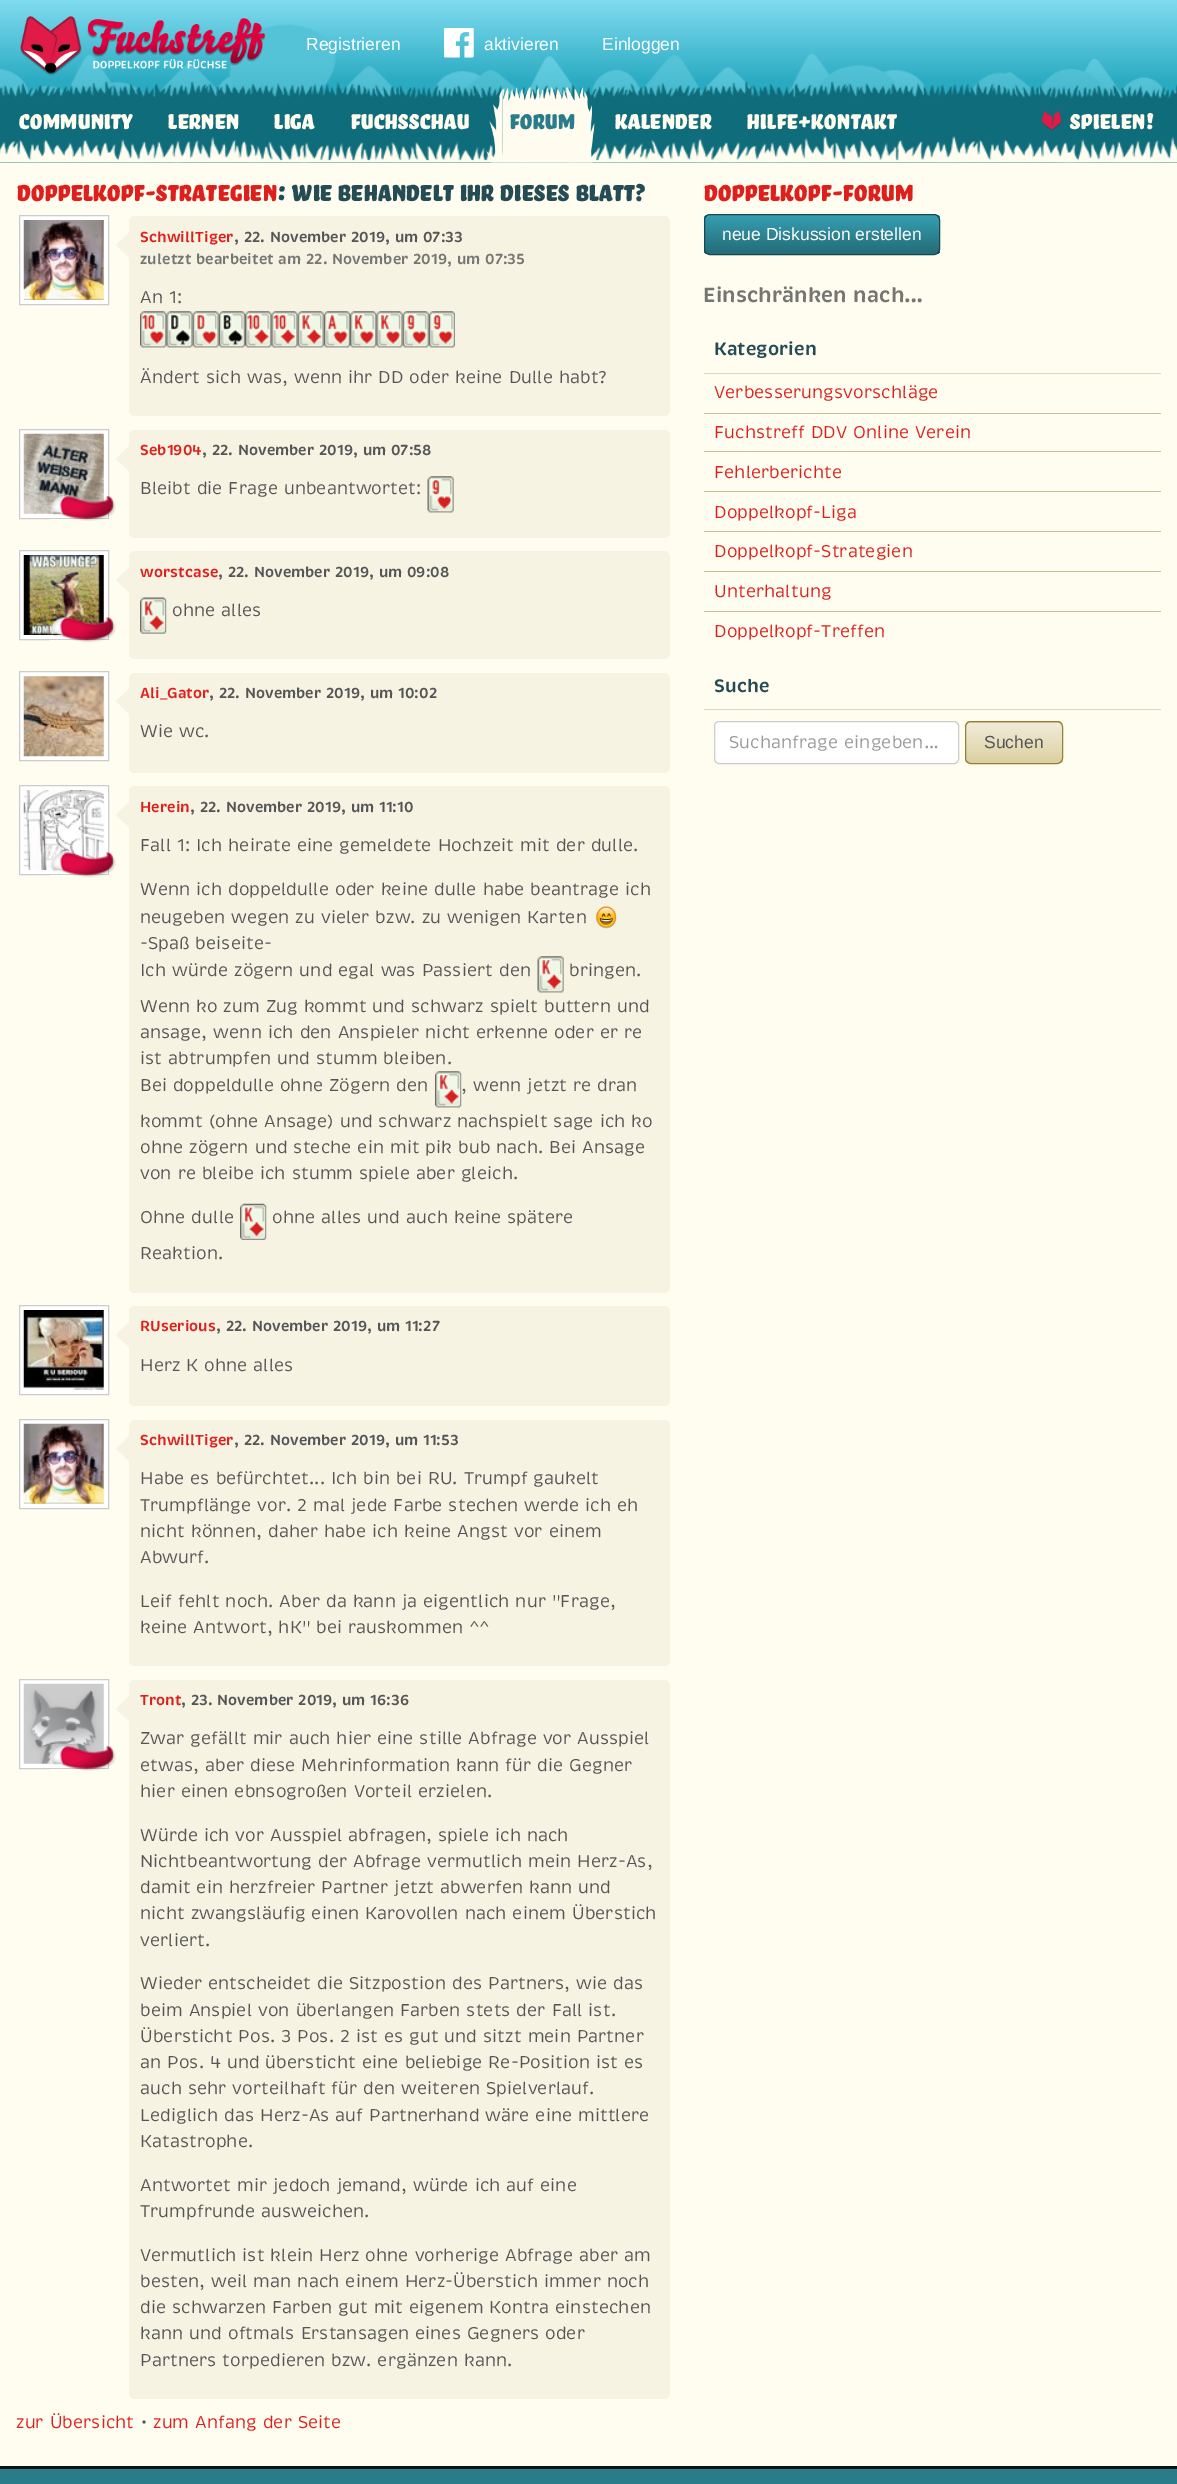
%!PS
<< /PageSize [1177 2484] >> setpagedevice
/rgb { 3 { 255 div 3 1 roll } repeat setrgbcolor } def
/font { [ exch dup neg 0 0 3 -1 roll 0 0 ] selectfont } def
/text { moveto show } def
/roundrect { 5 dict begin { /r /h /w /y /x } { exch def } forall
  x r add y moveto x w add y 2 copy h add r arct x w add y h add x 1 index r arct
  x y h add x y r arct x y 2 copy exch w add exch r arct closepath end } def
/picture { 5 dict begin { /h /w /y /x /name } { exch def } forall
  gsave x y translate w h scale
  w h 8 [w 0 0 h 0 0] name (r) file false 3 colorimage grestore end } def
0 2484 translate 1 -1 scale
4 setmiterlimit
255 253 240 rgb
0 0 1177 2484 rectfill
(img_01.rgb) 0 0 1177 163 picture
(img_02.rgb) 20 16 246 59 picture
(img_03.rgb) 444 28 30 30 picture
(img_07.rgb) 0 81 1177 82 picture
(img_08.rgb) 0 136 1177 27 picture
(img_04.rgb) 486 89 17 74 picture
(img_05.rgb) 502 87 95 76 picture
(img_06.rgb) 1041 111 21 20 picture
255 255 255 rgb
19.5 215.5 moveto 89 0 rlineto 0 89 rlineto -89 0 rlineto closepath gsave fill grestore
204 204 204 rgb
stroke
(img_09.rgb) 23 220 81 80 picture
246 243 227 rgb
129 216 541 200 6 roundrect fill
129 232.5 moveto 0 25 rlineto -13 -12.5 rlineto closepath fill
(img_10.rgb) 140 311 27 37 picture
(img_11.rgb) 166 311 27 37 picture
(img_12.rgb) 192 311 27 37 picture
(img_13.rgb) 218 311 27 37 picture
(img_14.rgb) 245 311 27 37 picture
(img_15.rgb) 271 311 27 37 picture
(img_16.rgb) 297 311 27 37 picture
(img_17.rgb) 323 311 27 37 picture
(img_18.rgb) 350 311 27 37 picture
(img_19.rgb) 376 311 27 37 picture
(img_20.rgb) 402 311 27 37 picture
(img_21.rgb) 428 311 27 37 picture
255 255 255 rgb
19.5 429.5 moveto 89 0 rlineto 0 89 rlineto -89 0 rlineto closepath gsave fill grestore
204 204 204 rgb
stroke
(img_22.rgb) 23 433 81 81 picture
(img_23.rgb) 50 496 66 25 picture
246 243 227 rgb
129 430 541 108 6 roundrect fill
129 446 moveto 0 25 rlineto -13 -12 rlineto closepath fill
(img_24.rgb) 427 476 27 37 picture
255 255 255 rgb
19.5 550.5 moveto 89 0 rlineto 0 89 rlineto -89 0 rlineto closepath gsave fill grestore
204 204 204 rgb
stroke
(img_25.rgb) 23 555 81 80 picture
(img_26.rgb) 50 617 66 26 picture
246 243 227 rgb
129 551 541 108 6 roundrect fill
129 567.5 moveto 0 25 rlineto -13 -12.5 rlineto closepath fill
(img_27.rgb) 140 597 27 37 picture
255 255 255 rgb
19.5 671.5 moveto 89 0 rlineto 0 89 rlineto -89 0 rlineto closepath gsave fill grestore
204 204 204 rgb
stroke
(img_28.rgb) 23 676 81 81 picture
246 243 227 rgb
129 673 541 100 6 roundrect fill
129 689 moveto 0 25 rlineto -13 -13 rlineto closepath fill
255 255 255 rgb
19.5 785.5 moveto 89 0 rlineto 0 89 rlineto -89 0 rlineto closepath gsave fill grestore
204 204 204 rgb
stroke
(img_29.rgb) 23 790 81 80 picture
(img_30.rgb) 50 852 66 26 picture
246 243 227 rgb
129 786 541 507 6 roundrect fill
129 802.5 moveto 0 25 rlineto -13 -12.5 rlineto closepath fill
(img_31.rgb) 596 906 21 23 picture
(img_32.rgb) 537 956 27 37 picture
(img_33.rgb) 435 1071 27 37 picture
(img_34.rgb) 240 1203 27 37 picture
255 255 255 rgb
19.5 1305.5 moveto 89 0 rlineto 0 89 rlineto -89 0 rlineto closepath gsave fill grestore
204 204 204 rgb
stroke
(img_35.rgb) 23 1310 81 80 picture
246 243 227 rgb
129 1306 541 100 6 roundrect fill
129 1322.5 moveto 0 25 rlineto -13 -12.5 rlineto closepath fill
255 255 255 rgb
19.5 1419.5 moveto 89 0 rlineto 0 89 rlineto -89 0 rlineto closepath gsave fill grestore
204 204 204 rgb
stroke
(img_36.rgb) 23 1423 81 81 picture
246 243 227 rgb
129 1420 541 246 6 roundrect fill
129 1436 moveto 0 25 rlineto -13 -12 rlineto closepath fill
255 255 255 rgb
19.5 1679.5 moveto 89 0 rlineto 0 89 rlineto -89 0 rlineto closepath gsave fill grestore
204 204 204 rgb
stroke
(img_37.rgb) 23 1683 81 81 picture
(img_38.rgb) 50 1746 66 25 picture
246 243 227 rgb
129 1680 541 719 6 roundrect fill
129 1696 moveto 0 25 rlineto -13 -12 rlineto closepath fill
gsave
704 214 236 41 6 roundrect clip newpath
gsave 704 215 moveto 236 0 rlineto 0 39 rlineto -236 0 rlineto closepath clip newpath
<< /ShadingType 2 /ColorSpace /DeviceRGB /Coords [822 215 822 254] /Extend [true true] /Function << /FunctionType 2 /Domain [0 1] /C0 [0.212 0.624 0.698] /C1 [0.141 0.42 0.467] /N 1 >> >> shfill grestore
grestore
24 72 80 rgb
704.5 214.5 235 40 5.5 roundrect stroke
223 216 185 rgb
704 373 457 1 rectfill
202 191 148 rgb
704 413 457 1 rectfill
704 451 457 1 rectfill
704 491 457 1 rectfill
704 531 457 1 rectfill
704 571 457 1 rectfill
704 611 457 1 rectfill
223 216 185 rgb
704 709 457 1 rectfill
255 255 255 rgb
714.5 721.5 244 42 4.5 roundrect gsave fill grestore
204 204 204 rgb
stroke
gsave
965 721 98 43 6 roundrect clip newpath
gsave 965 721 moveto 98 0 rlineto 0 2 rlineto -98 0 rlineto closepath clip newpath
<< /ShadingType 2 /ColorSpace /DeviceRGB /Coords [1014 683 1014 723] /Extend [true true] /Function << /FunctionType 2 /Domain [0 1] /C0 [0.945 0.925 0.851] /C1 [0.863 0.816 0.631] /N 1 >> >> shfill grestore
gsave 965 723 moveto 98 0 rlineto 0 40 rlineto -98 0 rlineto closepath clip newpath
<< /ShadingType 2 /ColorSpace /DeviceRGB /Coords [1014 723 1014 763] /Extend [true true] /Function << /FunctionType 2 /Domain [0 1] /C0 [0.945 0.925 0.851] /C1 [0.863 0.816 0.631] /N 1 >> >> shfill grestore
grestore
148 128 55 rgb
965.5 721.5 97 42 5.5 roundrect stroke
42 124 139 rgb
0 2469 1177 15 rectfill
6 19 22 rgb
0 2466 1177 3 rectfill
/LiberationSans-Regular 17.5 font
255 255 255 rgb
(Registrieren) 306 50 text
(aktivieren) 484 50 text
(Einloggen) 602 50 text
/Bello-Regular 27.5 font
255 253 240 rgb
(Community) 18 129 text
(Lernen) 167 129 text
(Liga) 273 129 text
(Fuchsschau) 350 129 text
42 124 139 rgb
(Forum) 509 129 text
255 253 240 rgb
(Kalender) 614 129 text
(Hilfe+Kontakt) 746 129 text
(Spielen!) 1069 129 text
/Bello-Regular 29.75 font
222 31 28 rgb
(Doppelkopf-Strategien) 16 201 text
37 75 84 rgb
(: Wie behandelt ihr dieses Blatt?) 277 201 text
/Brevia-SemiBold 14.9 font
222 31 28 rgb
(SchwillTiger) 140 242 text
85 85 85 rgb
(, 22. November 2019, um 07:33) 234 242 text
117 117 113 rgb
(zuletzt bearbeitet am 22. November 2019, um 07:35) 140 264 text
/Brevia-Regular 17.5 font
85 85 85 rgb
(An 1:) 140 303 text
(Ändert sich was, wenn ihr DD oder keine Dulle habt?) 140 383 text
/Brevia-SemiBold 14.9 font
222 31 28 rgb
(Seb1904) 140 455 text
85 85 85 rgb
(, 22. November 2019, um 07:58) 202 455 text
/Brevia-Regular 17.5 font
(Bleibt die Frage unbeantwortet:) 140 494 text
/Brevia-SemiBold 14.9 font
222 31 28 rgb
(worstcase) 140 577 text
85 85 85 rgb
(, 22. November 2019, um 09:08) 218 577 text
/Brevia-Regular 17.5 font
(ohne alles) 172 616 text
/Brevia-SemiBold 14.9 font
222 31 28 rgb
(Ali_Gator) 140 698 text
85 85 85 rgb
(, 22. November 2019, um 10:02) 209 698 text
/Brevia-Regular 17.5 font
(Wie wc.) 140 737 text
/Brevia-SemiBold 14.9 font
222 31 28 rgb
(Herein) 140 812 text
85 85 85 rgb
(, 22. November 2019, um 11:10) 190 812 text
/Brevia-Regular 17.5 font
(Fall 1: Ich heirate eine gemeldete Hochzeit mit der dulle.) 140 851 text
(Wenn ich doppeldulle oder keine dulle habe beantrage ich) 140 895 text
(neugeben wegen zu vieler bzw. zu wenigen Karten) 140 923 text
(-Spaß beiseite-) 140 949 text
(Ich würde zögern und egal was Passiert den) 140 976 text
(bringen.) 569 976 text
(Wenn ko zum Zug kommt und schwarz spielt buttern und) 140 1012 text
(ansage, wenn ich den Anspieler nicht erkenne oder er re) 140 1038 text
(ist abtrumpfen und stumm bleiben.) 140 1064 text
(Bei doppeldulle ohne Zögern den) 140 1091 text
(, wenn jetzt re dran) 461 1091 text
(kommt \(ohne Ansage\) und schwarz nachspielt sage ich ko) 140 1127 text
(ohne zögern und steche ein mit pik bub nach. Bei Ansage) 140 1153 text
(von re bleibe ich stumm spiele aber gleich.) 140 1179 text
(Ohne dulle) 140 1223 text
(ohne alles und auch keine spätere) 272 1223 text
(Reaktion.) 140 1259 text
/Brevia-SemiBold 14.9 font
222 31 28 rgb
(RUserious) 140 1331 text
85 85 85 rgb
(, 22. November 2019, um 11:27) 216 1331 text
/Brevia-Regular 17.5 font
(Herz K ohne alles) 140 1371 text
/Brevia-SemiBold 14.9 font
222 31 28 rgb
(SchwillTiger) 140 1445 text
85 85 85 rgb
(, 22. November 2019, um 11:53) 234 1445 text
/Brevia-Regular 17.5 font
(Habe es befürchtet... Ich bin bei RU. Trumpf gaukelt) 140 1484 text
(Trumpflänge vor. 2 mal jede Farbe stechen werde ich eh) 140 1511 text
(nicht können, daher habe ich keine Angst vor einem) 140 1537 text
(Abwurf.) 140 1563 text
(Leif fehlt noch. Aber da kann ja eigentlich nur "Frage,) 140 1607 text
(keine Antwort, hK" bei rauskommen ^^) 140 1633 text
/Brevia-SemiBold 14.9 font
222 31 28 rgb
(Tront) 140 1705 text
85 85 85 rgb
(, 23. November 2019, um 16:36) 181 1705 text
/Brevia-Regular 17.5 font
(Zwar gefällt mir auch hier eine stille Abfrage vor Ausspiel) 140 1744 text
(etwas, aber diese Mehrinformation kann für die Gegner) 140 1771 text
(hier einen ebnsogroßen Vorteil erzielen.) 140 1797 text
(Würde ich vor Ausspiel abfragen, spiele ich nach) 140 1841 text
(Nichtbeantwortung der Abfrage vermutlich mein Herz-As,) 140 1867 text
(damit ein herzfreier Partner jetzt abwerfen kann und) 140 1893 text
(nicht zwangsläufig einen Karovollen nach einem Überstich) 140 1919 text
(verliert.) 140 1946 text
(Wieder entscheidet die Sitzpostion des Partners, wie das) 140 1989 text
(beim Anspiel von überlangen Farben stets der Fall ist.) 140 2016 text
(Übersticht Pos. 3 Pos. 2 ist es gut und sitzt mein Partner) 140 2042 text
(an Pos. 4 und übersticht eine beliebige Re-Position ist es) 140 2068 text
(auch sehr vorteilhaft für den weiteren Spielverlauf.) 140 2094 text
(Lediglich das Herz-As auf Partnerhand wäre eine mittlere) 140 2121 text
(Katastrophe.) 140 2147 text
(Antwortet mir jedoch jemand, würde ich auf eine) 140 2191 text
(Trumpfrunde ausweichen.) 140 2217 text
(Vermutlich ist klein Herz ohne vorherige Abfrage aber am) 140 2261 text
(besten, weil man nach einem Herz-Überstich immer noch) 140 2287 text
(die schwarzen Farben gut mit eigenem Kontra einstechen) 140 2313 text
(kann und oftmals Erstansagen eines Gegners oder) 140 2339 text
(Partners torpedieren bzw. ergänzen kann.) 140 2366 text
222 31 28 rgb
(zur Übersicht) 16 2428 text
85 85 85 rgb
(•) 141 2428 text
222 31 28 rgb
(zum Anfang der Seite) 153 2428 text
/Bello-Regular 29.75 font
(Doppelkopf-Forum) 703 201 text
/LiberationSans-Regular 17.5 font
255 255 255 rgb
(neue Diskussion erstellen) 722 240 text
/Brevia-SemiBold 21 font
117 117 113 rgb
(Einschränken nach…) 703 302 text
/Brevia-SemiBold 18.5 font
37 75 84 rgb
(Kategorien) 714 355 text
/Brevia-Regular 17.5 font
222 31 28 rgb
(Verbesserungsvorschläge) 714 398 text
(Fuchstreff DDV Online Verein) 714 438 text
(Fehlerberichte) 714 478 text
(Doppelkopf-Liga) 714 518 text
(Doppelkopf-Strategien) 714 557 text
(Unterhaltung) 714 597 text
(Doppelkopf-Treffen) 714 637 text
/Brevia-SemiBold 18.5 font
37 75 84 rgb
(Suche) 714 692 text
/Brevia-Regular 17.5 font
153 153 153 rgb
(Suchanfrage eingeben…) 729 748 text
/LiberationSans-Regular 17.5 font
85 85 85 rgb
(Suchen) 984 748 text
showpage
